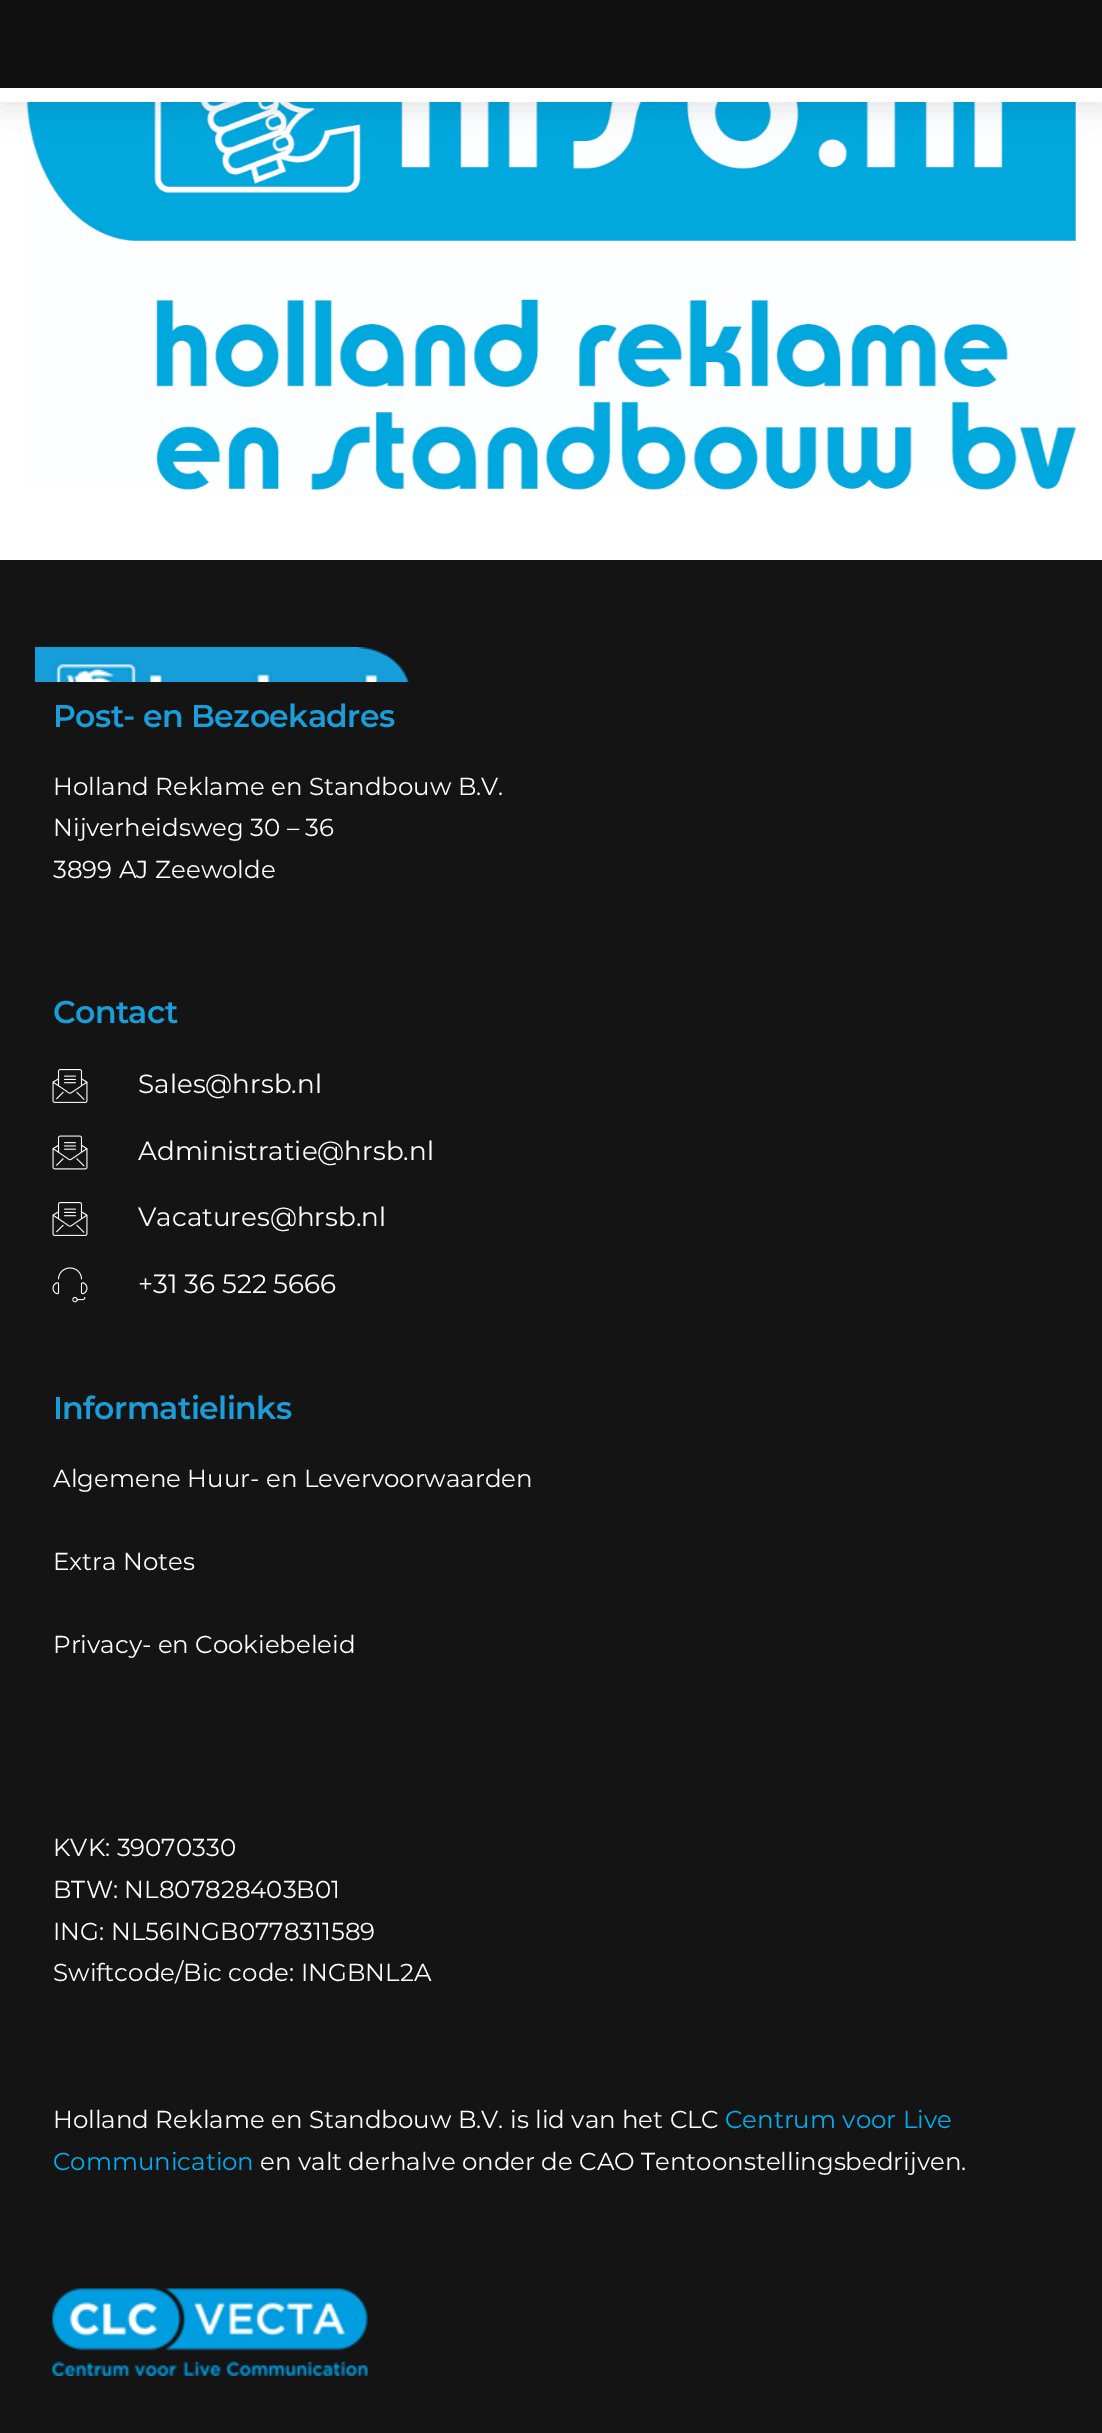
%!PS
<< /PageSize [1102 2433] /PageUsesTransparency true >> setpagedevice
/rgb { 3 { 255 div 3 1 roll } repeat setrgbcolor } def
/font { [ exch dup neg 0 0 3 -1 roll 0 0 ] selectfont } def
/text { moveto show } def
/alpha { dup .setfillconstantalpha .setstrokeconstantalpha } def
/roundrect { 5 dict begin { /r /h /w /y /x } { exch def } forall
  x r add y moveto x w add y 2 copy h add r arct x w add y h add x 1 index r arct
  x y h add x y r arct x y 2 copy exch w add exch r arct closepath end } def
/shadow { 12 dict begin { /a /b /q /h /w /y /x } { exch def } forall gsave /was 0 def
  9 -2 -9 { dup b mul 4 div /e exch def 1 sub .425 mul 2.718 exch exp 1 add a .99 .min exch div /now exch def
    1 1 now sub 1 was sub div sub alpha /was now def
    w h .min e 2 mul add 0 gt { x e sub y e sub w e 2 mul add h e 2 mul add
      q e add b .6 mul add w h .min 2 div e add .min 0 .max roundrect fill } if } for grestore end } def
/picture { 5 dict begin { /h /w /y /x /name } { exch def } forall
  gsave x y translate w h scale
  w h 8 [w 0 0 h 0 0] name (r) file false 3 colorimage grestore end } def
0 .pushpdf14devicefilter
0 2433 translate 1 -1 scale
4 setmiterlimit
255 255 255 rgb
0 0 1102 2433 rectfill
(img_01.rgb) 26 102 1050 388 picture
0 0 0 rgb
0 7 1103 102 0 14 0.1 shadow
17 17 17 rgb
0 0 1102 88 rectfill
255 255 255 rgb
0 88 1102 14 rectfill
21 20 20 rgb
0 560 1102 1873 rectfill
(img_02.rgb) 35 647 375 35 picture
(img_03.rgb) 52 1069 36 34 picture
(img_04.rgb) 52 1135 36 35 picture
(img_03.rgb) 52 1202 36 34 picture
(img_05.rgb) 52 1267 36 36 picture
(img_06.rgb) 52 2288 316 88 picture
/Montserrat-SemiBold 31.5 font
27 157 217 rgb
53 727 moveto -0.6 0 (Post- en Bezoekadres) ashow
/Montserrat-Regular 24.5 font
255 255 255 rgb
(Holland Reklame en Standbouw B.V.) 53 795 text
(Nijverheidsweg 30 – 36) 53 836 text
(3899 AJ Zeewolde) 53 878 text
/Montserrat-SemiBold 31.5 font
27 157 217 rgb
53 1023 moveto -0.6 0 (Contact) ashow
/Montserrat-Regular 26.25 font
255 255 255 rgb
(Sales@hrsb.nl) 138 1093 text
(Administratie@hrsb.nl) 138 1160 text
(Vacatures@hrsb.nl) 138 1226 text
(+31 36 522 5666) 138 1293 text
/Montserrat-SemiBold 31.5 font
27 157 217 rgb
53 1419 moveto -0.6 0 (Informatielinks) ashow
/Montserrat-Regular 24.5 font
255 255 255 rgb
(Algemene Huur- en Levervoorwaarden) 53 1487 text
(Extra Notes) 53 1570 text
(Privacy- en Cookiebeleid) 53 1653 text
(KVK: 39070330) 53 1856 text
(BTW: NL807828403B01) 53 1898 text
(ING: NL56INGB0778311589) 53 1940 text
(Swiftcode/Bic code: INGBNL2A) 53 1981 text
(Holland Reklame en Standbouw B.V. is lid van het CLC) 53 2128 text
0 175 242 rgb
(Centrum voor Live) 725 2128 text
(Communication) 53 2170 text
255 255 255 rgb
(en valt derhalve onder de CAO Tentoonstellingsbedrijven.) 260 2170 text
.poppdf14devicefilter showpage
